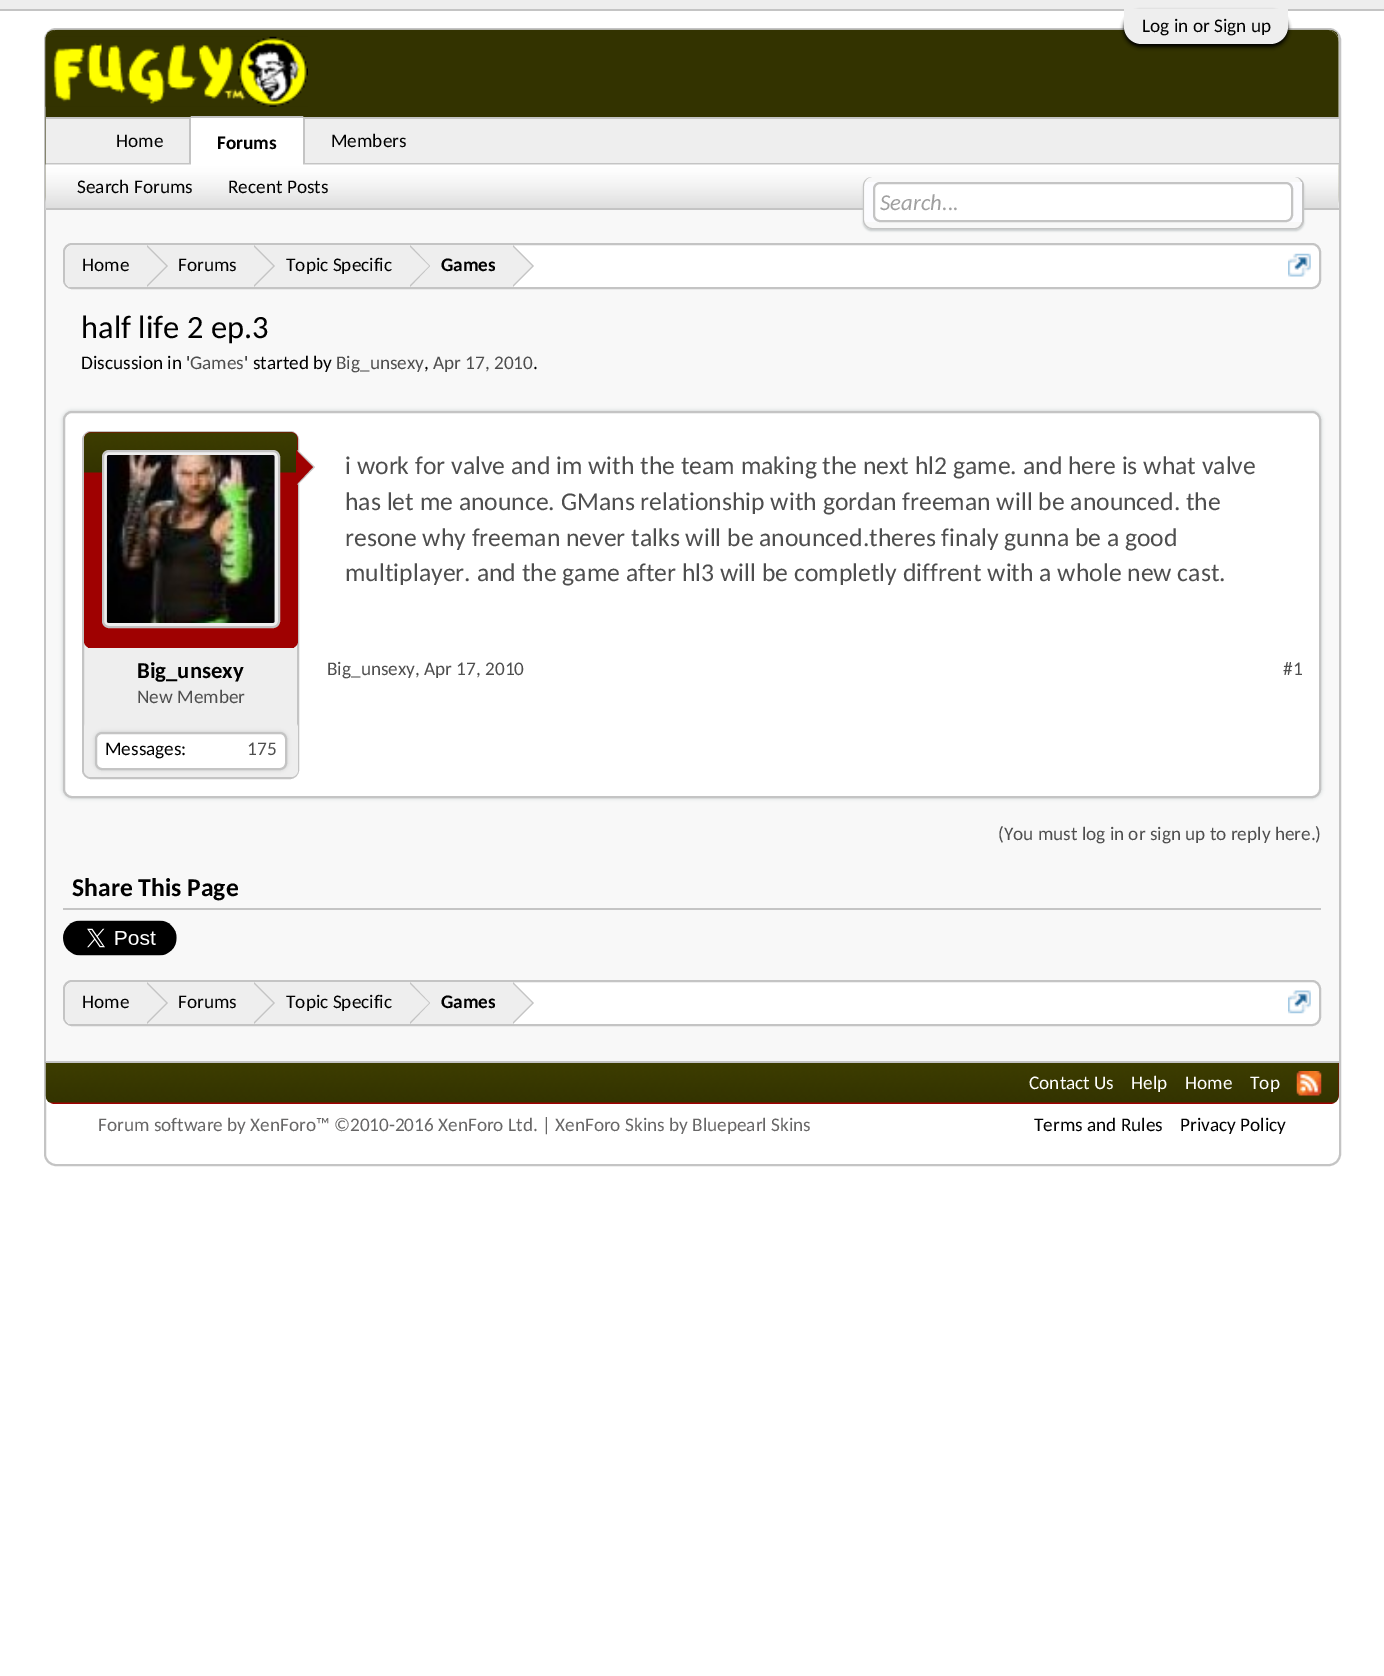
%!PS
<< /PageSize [1384 1676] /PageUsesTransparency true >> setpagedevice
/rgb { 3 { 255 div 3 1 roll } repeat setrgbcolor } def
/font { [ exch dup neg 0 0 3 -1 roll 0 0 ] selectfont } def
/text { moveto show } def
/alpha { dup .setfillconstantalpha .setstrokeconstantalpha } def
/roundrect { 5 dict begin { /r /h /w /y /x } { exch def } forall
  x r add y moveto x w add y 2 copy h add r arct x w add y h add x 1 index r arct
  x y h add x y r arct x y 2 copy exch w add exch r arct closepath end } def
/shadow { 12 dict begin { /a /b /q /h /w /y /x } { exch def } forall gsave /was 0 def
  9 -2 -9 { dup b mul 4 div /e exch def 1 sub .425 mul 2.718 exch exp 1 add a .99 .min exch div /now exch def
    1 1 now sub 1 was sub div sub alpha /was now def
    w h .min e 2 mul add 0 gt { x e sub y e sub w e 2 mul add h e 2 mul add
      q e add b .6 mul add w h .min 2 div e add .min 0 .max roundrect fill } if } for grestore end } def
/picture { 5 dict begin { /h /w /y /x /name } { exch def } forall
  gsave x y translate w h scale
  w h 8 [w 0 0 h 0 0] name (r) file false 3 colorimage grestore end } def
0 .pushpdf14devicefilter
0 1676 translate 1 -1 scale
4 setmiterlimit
255 255 255 rgb
0 0 1384 1676 rectfill
238 238 238 rgb
0 0 1384 9 rectfill
196 196 196 rgb
0 9 1384 2 rectfill
2 setlinewidth
45 29 1295 1136 11 roundrect stroke
255 255 255 rgb
46 30 1293 178 9 roundrect fill
(img_01.rgb) 45 29 1294 174 picture
46 30 1293 178 12 roundrect fill
(img_02.rgb) 45 29 1294 171 picture
0 0 0 rgb
1124 12 164 35 17.5 2 1 shadow
238 238 238 rgb
1124 9 moveto 164 0 rlineto 0 17.5 rlineto 0 9.5 -8 17.5 -17.5 17.5 rcurveto -129 0 rlineto -9.5 0 -17.5 -8 -17.5 -17.5 rcurveto closepath fill
(img_03.rgb) 45 36 263 71 picture
46 119 1293 44 rectfill
196 196 196 rgb
46 117 1293 2 rectfill
46 163 1293 2 rectfill
255 255 255 rgb
193 116 moveto 108 0 rlineto 2 0 4 2 4 4 rcurveto 0 45 rlineto -116 0 rlineto 0 -45 rlineto 0 -2 2 -4 4 -4 rcurveto closepath fill
196 196 196 rgb
191 116 112 2 rectfill
303 117 2 48 rectfill
189 117 2 48 rectfill
(img_04.rgb) 45 164 1294 46 picture
46 208 1293 2 rectfill
248 248 248 rgb
46 210 1293 851 rectfill
199 203 204 rgb
863 179 441 52 9 1 1 shadow
248 248 248 rgb
863 177 441 52 9 roundrect fill
196 196 196 rgb
872 177 moveto 423 0 rlineto 5 0 9 4 9 9 rcurveto 0 34 rlineto 0 5 -4 9 -9 9 rcurveto -423 0 rlineto -5 0 -9 -4 -9 -9 rcurveto 0 -34 rlineto 0 -5 4 -9 9 -9 rcurveto closepath 872 177 moveto 423 0 rlineto 4 0 7 4 7 9 rcurveto 0 34 rlineto 0 4 -3 8 -7 8 rcurveto -423 0 rlineto -4 0 -8 -4 -8 -8 rcurveto 0 -34 rlineto 0 -5 4 -9 8 -9 rcurveto closepath eofill
252 252 255 rgb
865 182 437 40 rectfill
255 255 255 rgb
874 183 418 38 6 roundrect gsave fill grestore
196 196 196 rgb
stroke
255 255 255 rgb
64 244 1256 44 8 roundrect gsave fill grestore
196 196 196 rgb
stroke
gsave
65 245 1255 42 7 roundrect clip newpath
238 238 238 rgb
74 245 moveto 73 0 rlineto 0 44 rlineto -73 0 rlineto -5 0 -9 -4 -9 -9 rcurveto 0 -26 rlineto 0 -5 4 -9 9 -9 rcurveto closepath fill
grestore
238 238 238 rgb
147 245 366 42 rectfill
196 196 196 rgb
147 287 moveto 0 -42 rlineto 21 21 rlineto closepath fill
238 238 238 rgb
145 287 moveto 0 -42 rlineto 21 21 rlineto closepath fill
196 196 196 rgb
254 287 moveto 0 -42 rlineto 21 21 rlineto closepath fill
238 238 238 rgb
252 287 moveto 0 -42 rlineto 21 21 rlineto closepath fill
196 196 196 rgb
410 287 moveto 0 -42 rlineto 20 21 rlineto closepath fill
238 238 238 rgb
408 287 moveto 0 -42 rlineto 21 21 rlineto closepath fill
196 196 196 rgb
513 287 moveto 0 -42 rlineto 21 21 rlineto closepath fill
238 238 238 rgb
511 287 moveto 0 -42 rlineto 21 21 rlineto closepath fill
(img_05.rgb) 1288 253 23 24 picture
199 203 204 rgb
63 411 1258 387 9 2 1 shadow
255 255 255 rgb
64 412 1256 385 8 roundrect gsave fill grestore
196 196 196 rgb
stroke
238 238 238 rgb
83 432 215 346 8 roundrect gsave fill grestore
196 196 196 rgb
stroke
159 1 1 rgb
84 432 214 216 7 roundrect fill
(img_06.rgb) 84 432 214 41 picture
88 647 206 1 rectfill
238 238 238 rgb
103 451 176 176 6 roundrect gsave fill grestore
196 196 196 rgb
stroke
(img_07.rgb) 106 455 169 168 picture
297.5 485 moveto 0 -35 rlineto 17.5 17 rlineto closepath fill
159 1 1 rgb
296 485 moveto 0 -35 rlineto 17 17 rlineto closepath fill
238 238 238 rgb
84 721 214 56 7 roundrect fill
199 203 204 rgb
95 732 192 38 7 2 1 shadow
255 255 255 rgb
96 733 190 36 6 roundrect gsave fill grestore
196 196 196 rgb
stroke
63 908 1258 2 rectfill
(img_08.rgb) 63 920 114 36 picture
255 255 255 rgb
64 981 1256 44 8 roundrect gsave fill grestore
196 196 196 rgb
stroke
gsave
65 982 1255 42 7 roundrect clip newpath
238 238 238 rgb
74 982 moveto 73 0 rlineto 0 44 rlineto -73 0 rlineto -5 0 -9 -4 -9 -9 rcurveto 0 -26 rlineto 0 -5 4 -9 9 -9 rcurveto closepath fill
grestore
238 238 238 rgb
147 982 366 42 rectfill
196 196 196 rgb
147 1024 moveto 0 -42 rlineto 21 21 rlineto closepath fill
238 238 238 rgb
145 1024 moveto 0 -42 rlineto 21 21 rlineto closepath fill
196 196 196 rgb
254 1024 moveto 0 -42 rlineto 21 21 rlineto closepath fill
238 238 238 rgb
252 1024 moveto 0 -42 rlineto 21 21 rlineto closepath fill
196 196 196 rgb
410 1024 moveto 0 -42 rlineto 20 21 rlineto closepath fill
238 238 238 rgb
408 1024 moveto 0 -42 rlineto 21 21 rlineto closepath fill
196 196 196 rgb
513 1024 moveto 0 -42 rlineto 21 21 rlineto closepath fill
238 238 238 rgb
511 1024 moveto 0 -42 rlineto 21 21 rlineto closepath fill
(img_09.rgb) 1288 990 23 24 picture
159 1 1 rgb
46 1061 moveto 1293 0 rlineto 0 34 rlineto 0 5 -4 9 -9 9 rcurveto -1275 0 rlineto -5 0 -9 -4 -9 -9 rcurveto closepath fill
(img_10.rgb) 45 1062 1294 41 picture
196 196 196 rgb
46 1061 1293 2 rectfill
(img_11.rgb) 1296 1071 26 25 picture
/Carlito-Regular 19.25 font
0 0 0 rgb
(Log in or Sign up) 1142 32 text
(Home) 116 147 text
(Members) 331 147 text
/Carlito-Bold 19.25 font
(Forums) 217 149 text
/Carlito-Regular 19.25 font
(Search Forums) 77 193 text
(Recent Posts) 228 193 text
/Carlito-Italic 22.75 font
160 160 160 rgb
(Search...) 880 210 text
/Carlito-Regular 19.25 font
0 0 0 rgb
(Home) 82 271 text
gsave
179 245 57 42 rectclip
(Forums) 178 271 text
grestore
(Topic Specific) 286 271 text
gsave
441 245 54 42 rectclip
/Carlito-Bold 19.25 font
(Games) 441 271 text
grestore
/Carlito-Regular 32.5 font
(half life 2 ep.3) 81 338 text
/Carlito-Regular 19.25 font
(Discussion in ') 81 369 text
78 78 78 rgb
(Games) 190 369 text
0 0 0 rgb
(' started by) 244 369 text
78 78 78 rgb
(Big_unsexy) 336 369 text
0 0 0 rgb
(,) 424 369 text
78 78 78 rgb
(Apr 17, 2010) 433 369 text
0 0 0 rgb
(.) 533 369 text
/Carlito-Regular 25.65 font
78 78 78 rgb
(i work for valve and im with the team making the next hl2 game. and here is what valve) 345 474 text
(has let me anounce. GMans relationship with gordan freeman will be anounced. the) 345 510 text
(resone why freeman never talks will be anounced.theres finaly gunna be a good) 345 546 text
(multiplayer. and the game after hl3 will be completly diffrent with a whole new cast.) 345 581 text
/Carlito-Regular 19.25 font
(Big_unsexy, Apr 17, 2010) 327 675 text
(#1) 1283 675 text
/Carlito-Bold 22.75 font
0 0 0 rgb
(Big_unsexy) 137 678 text
/Carlito-Regular 19.25 font
78 78 78 rgb
(New Member) 137 703 text
0 0 0 rgb
(Messages:) 105 755 text
78 78 78 rgb
(175) 247 755 text
(\(You must log in or sign up to reply here.\)) 998 840 text
/Carlito-Bold 25.65 font
0 0 0 rgb
(Share This Page) 72 896 text
/Carlito-Regular 19.25 font
(Home) 82 1008 text
gsave
179 982 57 42 rectclip
(Forums) 178 1008 text
grestore
(Topic Specific) 286 1008 text
gsave
441 982 54 42 rectclip
/Carlito-Bold 19.25 font
(Games) 441 1008 text
grestore
255 255 255 rgb
(Contact Us) 1029 1089 text
(Help) 1131 1089 text
(Home) 1185 1089 text
(Top) 1250 1089 text
103 102 102 rgb
(Forum software by XenForo™ ©2010-2016 XenForo Ltd. | XenForo Skins by Bluepearl Skins) 98 1131 text
0 0 0 rgb
(Terms and Rules) 1034 1131 text
(Privacy Policy) 1180 1131 text
.poppdf14devicefilter showpage
